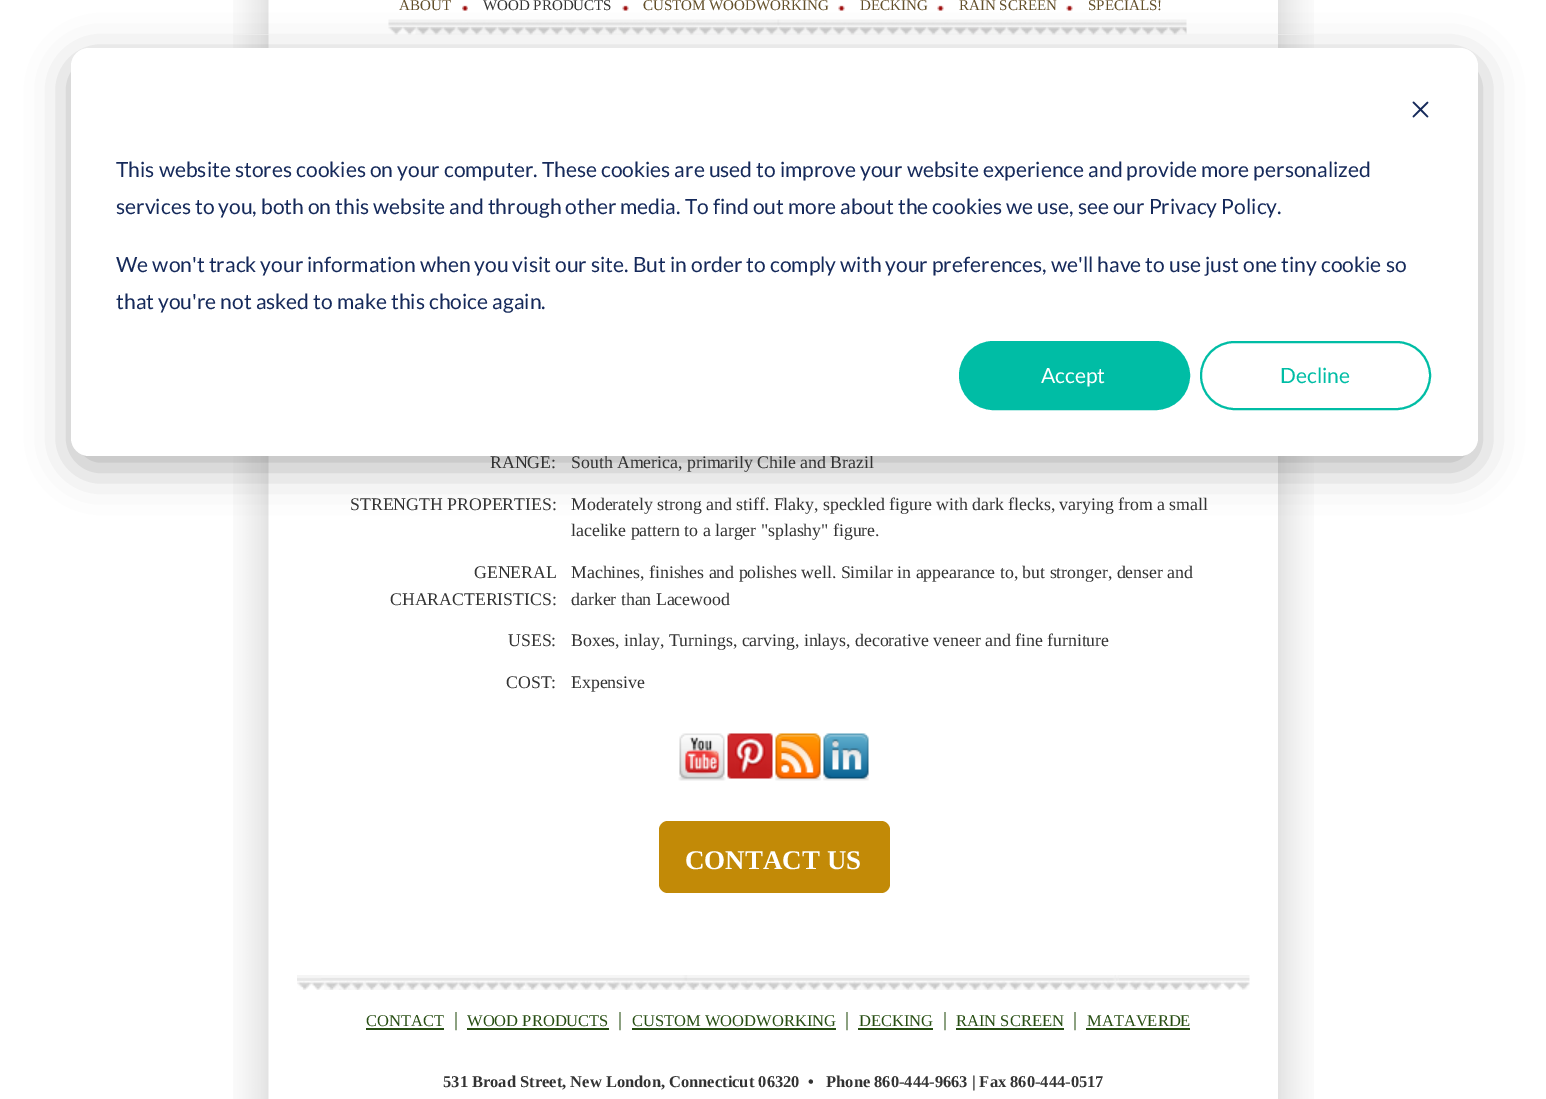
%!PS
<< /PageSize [1546 1099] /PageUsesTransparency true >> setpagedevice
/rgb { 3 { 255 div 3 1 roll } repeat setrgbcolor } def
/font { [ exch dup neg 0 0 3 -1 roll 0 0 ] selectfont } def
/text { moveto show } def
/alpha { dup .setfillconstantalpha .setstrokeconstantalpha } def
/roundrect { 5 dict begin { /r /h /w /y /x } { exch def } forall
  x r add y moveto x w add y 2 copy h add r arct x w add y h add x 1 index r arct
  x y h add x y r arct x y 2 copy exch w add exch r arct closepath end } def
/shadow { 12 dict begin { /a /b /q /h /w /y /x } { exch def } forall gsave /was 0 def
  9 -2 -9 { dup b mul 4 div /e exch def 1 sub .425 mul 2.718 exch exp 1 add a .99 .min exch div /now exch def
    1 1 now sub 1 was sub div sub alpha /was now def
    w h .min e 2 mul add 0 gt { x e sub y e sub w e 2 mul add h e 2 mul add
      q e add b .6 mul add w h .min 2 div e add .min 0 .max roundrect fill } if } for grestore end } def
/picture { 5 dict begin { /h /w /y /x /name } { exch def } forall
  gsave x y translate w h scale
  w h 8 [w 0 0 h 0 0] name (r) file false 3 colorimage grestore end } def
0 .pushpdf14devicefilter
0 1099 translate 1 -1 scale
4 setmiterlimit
255 255 255 rgb
0 0 1546 1099 rectfill
(img_01.rgb) 233 0 1081 35 picture
(img_02.rgb) 388 19 799 16 picture
(img_03.rgb) 462 5 6 6 picture
(img_04.rgb) 622 5 7 6 picture
(img_04.rgb) 838 5 7 6 picture
(img_04.rgb) 937 5 7 6 picture
(img_04.rgb) 1066 5 7 6 picture
(img_06.rgb) 233 35 1081 940 picture
0 0 0 rgb
71 60 1407 408 18 21 0.28 shadow
(img_07.rgb) 678 733 48 48 picture
(img_08.rgb) 727 733 46 46 picture
(img_09.rgb) 775 733 46 48 picture
(img_10.rgb) 823 733 46 48 picture
194 138 7 rgb
659 821 231 72 9 roundrect fill
(img_11.rgb) 233 975 1081 124 picture
(img_12.rgb) 297 975 953 15 picture
39 78 19 rgb
366 1028 78 2 rectfill
467 1028 142 2 rectfill
632 1028 204 2 rectfill
858 1028 75 2 rectfill
956 1028 108 2 rectfill
1086 1028 104 2 rectfill
/LiberationSerif-Regular 15 font
99 79 41 rgb
(ABOUT) 399 10 text
51 51 51 rgb
(WOOD PRODUCTS) 483 10 text
99 79 41 rgb
(CUSTOM WOODWORKING) 643 10 text
(DECKING) 860 10 text
(RAIN SCREEN) 959 10 text
(SPECIALS!) 1088 10 text
/LiberationSerif-Regular 17.75 font
51 51 51 rgb
(RANGE:) 490 468 text
(South America, primarily Chile and Brazil) 571 468 text
255 255 255 rgb
71 48 1407 408 18 roundrect fill
(img_05.rgb) 1412 101 17 17 picture
0 189 165 rgb
2 setlinewidth
1201 342 229 67 33.5 roundrect stroke
/Lato-Regular 21 font
(Decline) 1280 383 text
960 342 229 67 33.5 roundrect gsave fill grestore
stroke
255 255 255 rgb
(Accept) 1041 383 text
21 41 90 rgb
(that you're not asked to make this choice again.) 116 309 text
(We won't track your information when you visit our site. But in order to comply with your preferences, we'll have to use just one tiny cookie so) 116 272 text
(services to you, both on this website and through other media. To find out more about the cookies we use, see our Privacy Policy.) 116 214 text
(This website stores cookies on your computer. These cookies are used to improve your website experience and provide more personalized) 116 177 text
/LiberationSerif-Regular 17.75 font
51 51 51 rgb
(STRENGTH PROPERTIES:) 350 510 text
(Moderately strong and stiff. Flaky, speckled figure with dark flecks, varying from a small) 571 510 text
(lacelike pattern to a larger "splashy" figure.) 571 536 text
(GENERAL) 474 578 text
(CHARACTERISTICS:) 390 605 text
(Machines, finishes and polishes well. Similar in appearance to, but stronger, denser and) 571 578 text
(darker than Lacewood) 571 605 text
(USES:) 508 646 text
(Boxes, inlay, Turnings, carving, inlays, decorative veneer and fine furniture) 571 646 text
(COST:) 506 688 text
(Expensive) 571 688 text
/LiberationSerif-Bold 27 font
255 255 255 rgb
(CONTACT US) 685 869 text
/LiberationSerif-Regular 16.5 font
39 78 19 rgb
(CONTACT) 366 1026 text
/LiberationSerif-Regular 20 font
(|) 454 1026 text
/LiberationSerif-Regular 16.5 font
(WOOD PRODUCTS) 467 1026 text
/LiberationSerif-Regular 20 font
(|) 618 1026 text
/LiberationSerif-Regular 16.5 font
(CUSTOM WOODWORKING) 632 1026 text
/LiberationSerif-Regular 20 font
(|) 845 1026 text
/LiberationSerif-Regular 16.5 font
(DECKING) 859 1026 text
/LiberationSerif-Regular 20 font
(|) 943 1026 text
/LiberationSerif-Regular 16.5 font
(RAIN SCREEN) 956 1026 text
/LiberationSerif-Regular 20 font
(|) 1073 1026 text
/LiberationSerif-Regular 16.5 font
(MATAVERDE) 1087 1026 text
/LiberationSerif-Bold 16.5 font
51 51 51 rgb
(531 Broad Street, New London, Connecticut 06320  •) 443 1087 text
(Phone 860-444-9663 | Fax 860-444-0517) 826 1087 text
.poppdf14devicefilter showpage
